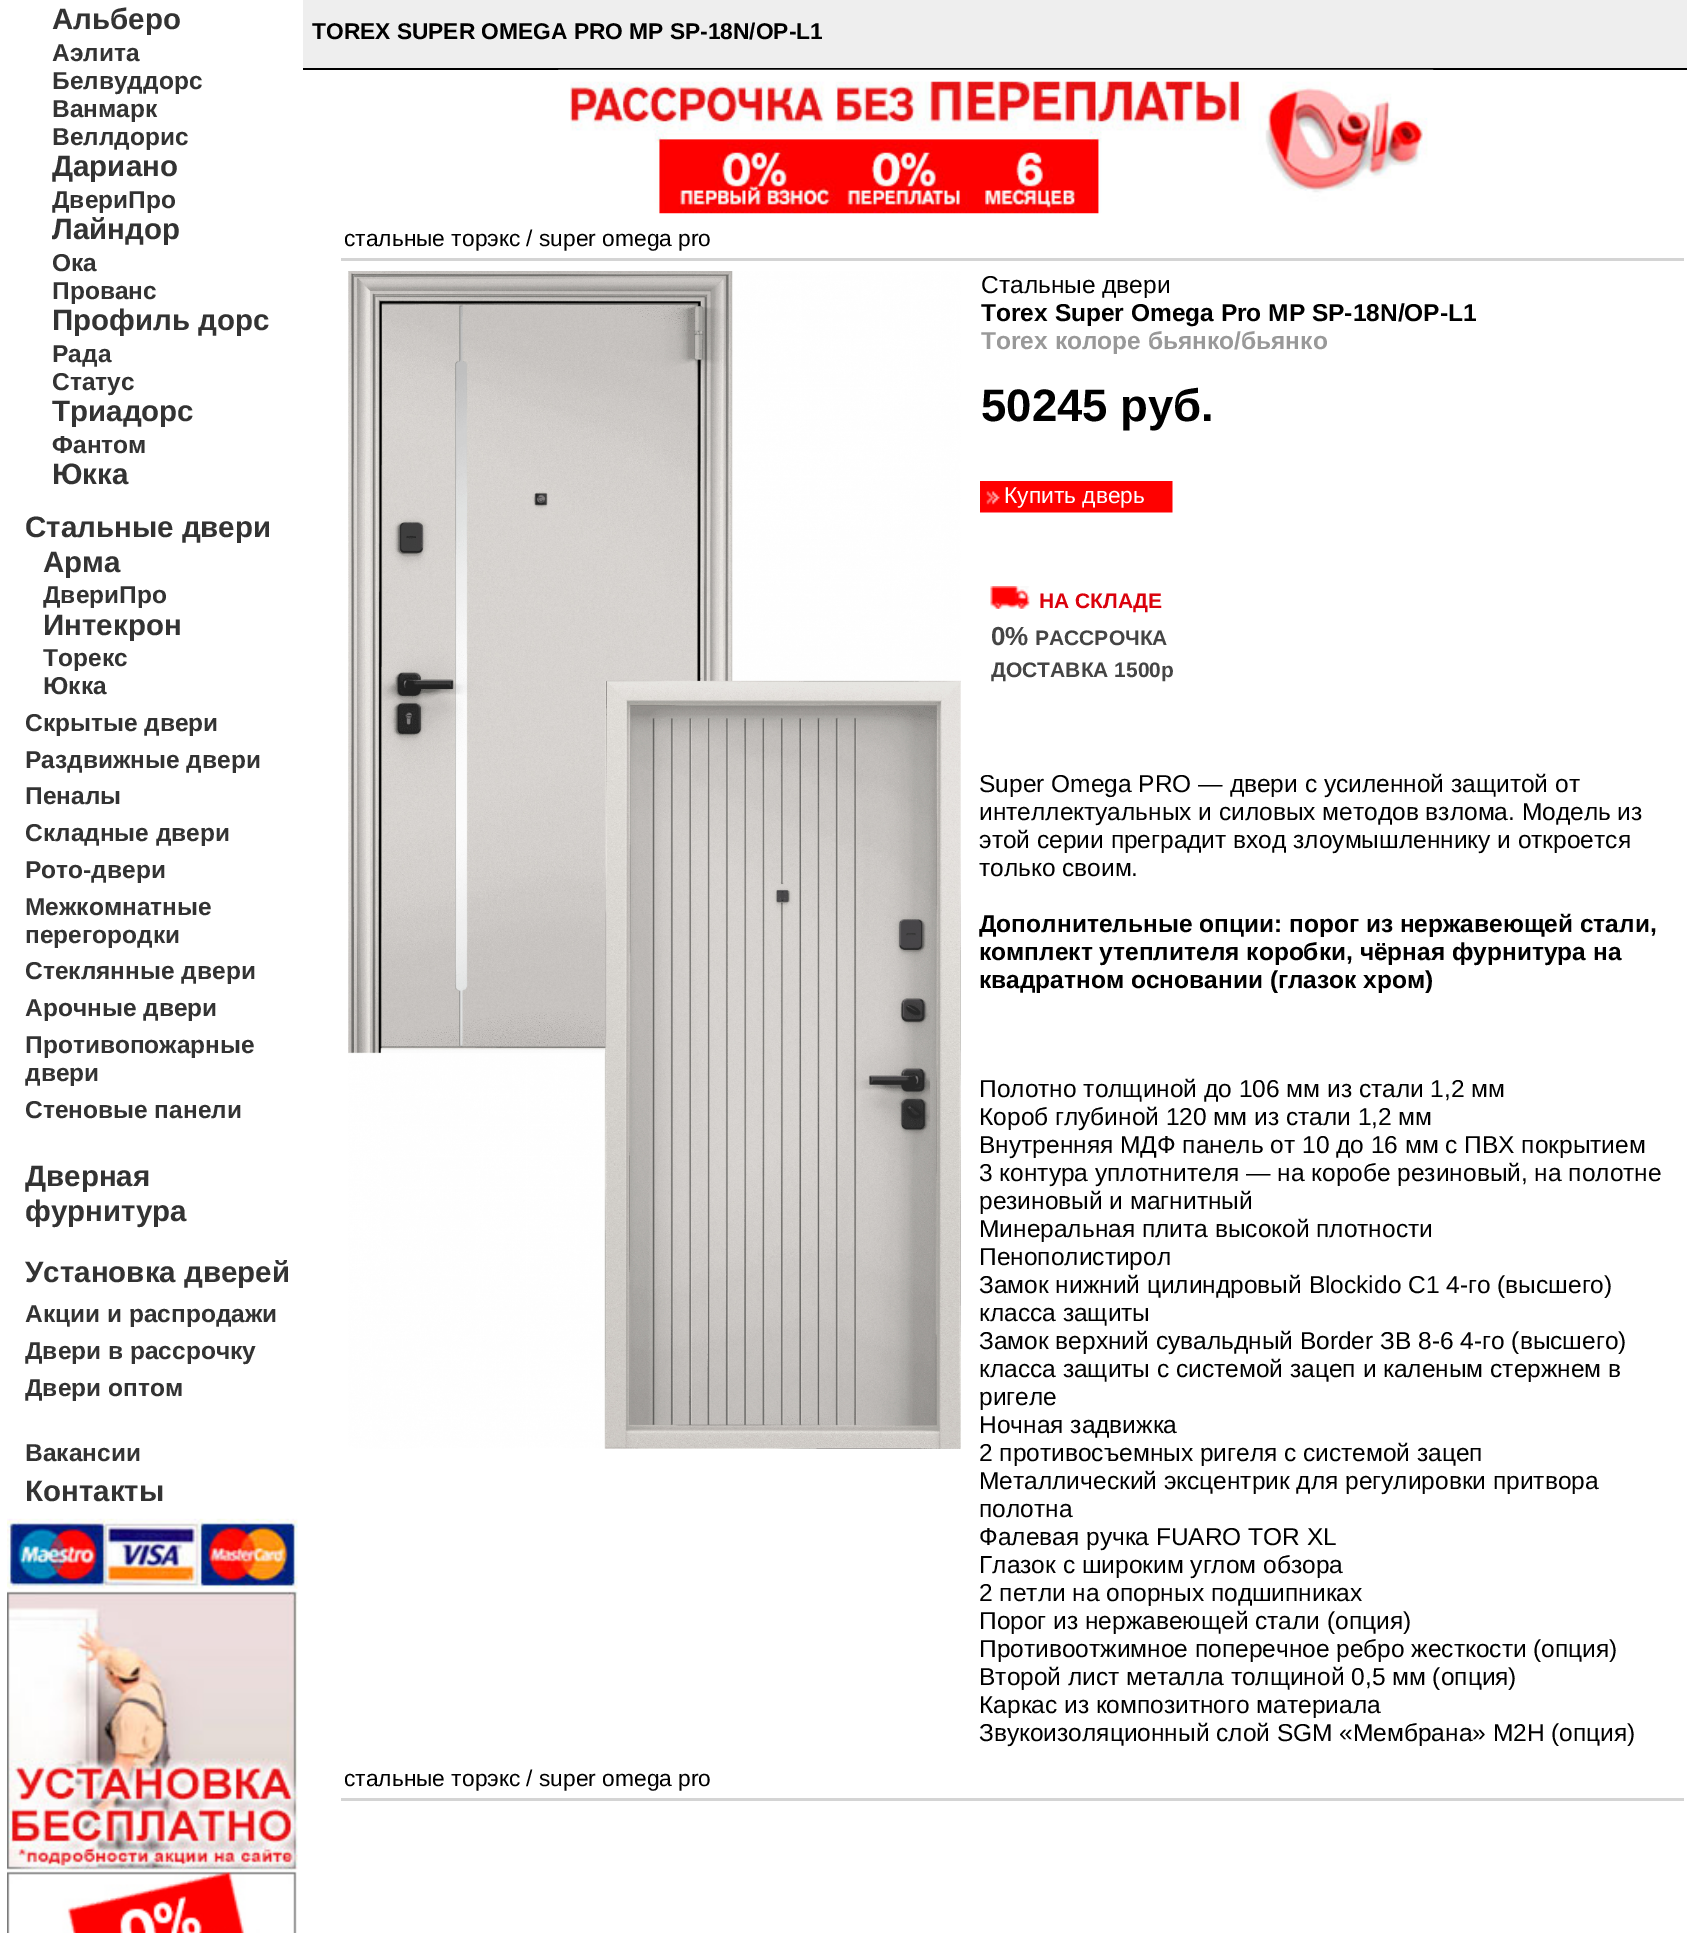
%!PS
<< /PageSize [1693 1933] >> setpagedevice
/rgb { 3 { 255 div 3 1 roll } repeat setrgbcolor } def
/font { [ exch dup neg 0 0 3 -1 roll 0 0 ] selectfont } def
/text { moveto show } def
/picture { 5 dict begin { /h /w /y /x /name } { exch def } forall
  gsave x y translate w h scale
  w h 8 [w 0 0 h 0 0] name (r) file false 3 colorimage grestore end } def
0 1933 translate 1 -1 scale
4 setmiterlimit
255 255 255 rgb
0 0 1693 1933 rectfill
(img_01.rgb) 7 1518 291 71 picture
(img_02.rgb) 7 1590 291 281 picture
(img_03.rgb) 7 1870 290 63 picture
238 238 238 rgb
303 0 1384 68 rectfill
0 0 0 rgb
303 68 1384 2 rectfill
(img_04.rgb) 558 69 876 145 picture
212 212 212 rgb
341 258 1343 3 rectfill
(img_05.rgb) 348 271 613 1178 picture
(img_06.rgb) 980 481 193 32 picture
(img_07.rgb) 990 586 40 23 picture
341 1798 1343 3 rectfill
/LiberationSans-Bold 29.5 font
51 51 51 rgb
(Альберо) 52 29 text
/LiberationSans-Bold 24.5 font
(Аэлита) 52 61 text
(Белвуддорс) 52 89 text
(Ванмарк) 52 117 text
(Веллдорис) 52 145 text
/LiberationSans-Bold 29.5 font
(Дариано) 52 176 text
/LiberationSans-Bold 24.5 font
(ДвериПро) 52 208 text
/LiberationSans-Bold 29.5 font
(Лайндор) 52 239 text
/LiberationSans-Bold 24.5 font
(Ока) 52 271 text
(Прованс) 52 299 text
/LiberationSans-Bold 29.5 font
(Профиль дорс) 52 330 text
/LiberationSans-Bold 24.5 font
(Рада) 52 362 text
(Статус) 52 390 text
/LiberationSans-Bold 29.5 font
(Триадорс) 52 421 text
/LiberationSans-Bold 24.5 font
(Фантом) 52 453 text
/LiberationSans-Bold 29.5 font
(Юкка) 52 484 text
(Стальные двери) 25 537 text
(Арма) 43 572 text
/LiberationSans-Bold 24.5 font
(ДвериПро) 43 603 text
/LiberationSans-Bold 29.5 font
(Интекрон) 43 635 text
/LiberationSans-Bold 24.5 font
(Торекс) 43 666 text
(Юкка) 43 694 text
(Скрытые двери) 25 731 text
(Раздвижные двери) 25 768 text
(Пеналы) 25 804 text
(Складные двери) 25 841 text
(Рото-двери) 25 878 text
(Межкомнатные) 25 915 text
(перегородки) 25 943 text
(Стеклянные двери) 25 979 text
(Арочные двери) 25 1016 text
(Противопожарные) 25 1053 text
(двери) 25 1081 text
(Стеновые панели) 25 1118 text
/LiberationSans-Bold 29.5 font
(Дверная) 25 1186 text
(фурнитура) 25 1221 text
(Установка дверей) 25 1282 text
/LiberationSans-Bold 24.5 font
(Акции и распродажи) 25 1322 text
(Двери в рассрочку) 25 1359 text
(Двери оптом) 25 1396 text
(Вакансии) 25 1461 text
/LiberationSans-Bold 29.5 font
(Контакты) 25 1501 text
/LiberationSans-Bold 22.75 font
0 0 0 rgb
(TOREX SUPER OMEGA PRO MP SP-18N/ОР-L1) 312 39 text
/LiberationSans-Regular 22.75 font
(стальные торэкс / super omega pro) 344 246 text
/LiberationSans-Regular 24.5 font
(Стальные двери) 981 293 text
/LiberationSans-Bold 24.5 font
(Torex Super Omega Pro MP SP-18N/ОР-L1) 981 321 text
153 153 153 rgb
(Torex колоре бьянко/бьянко) 981 349 text
/LiberationSans-Bold 45.5 font
0 0 0 rgb
(50245 руб.) 981 421 text
/LiberationSans-Regular 22.75 font
255 255 255 rgb
(Купить дверь) 1004 503 text
/LiberationSans-Bold 21 font
219 1 12 rgb
(НА СКЛАДЕ) 1039 608 text
/LiberationSans-Bold 26 font
69 69 69 rgb
(0%) 991 645 text
/LiberationSans-Bold 21 font
(РАССРОЧКА) 1035 645 text
(ДОСТАВКА 1500р) 991 677 text
/LiberationSans-Regular 24.5 font
0 0 0 rgb
(Super Omega PRO — двери с усиленной защитой от) 979 792 text
(интеллектуальных и силовых методов взлома. Модель из) 979 820 text
(этой серии преградит вход злоумышленнику и откроется) 979 848 text
(только своим.) 979 876 text
/LiberationSans-Bold 24.5 font
(Дополнительные опции: порог из нержавеющей стали,) 979 932 text
(комплект утеплителя коробки, чёрная фурнитура на) 979 960 text
(квадратном основании \(глазок хром\)) 979 988 text
/LiberationSans-Regular 24.5 font
(Полотно толщиной до 106 мм из стали 1,2 мм) 979 1097 text
(Короб глубиной 120 мм из стали 1,2 мм) 979 1125 text
(Внутренняя МДФ панель от 10 до 16 мм с ПВХ покрытием) 979 1153 text
(3 контура уплотнителя — на коробе резиновый, на полотне) 979 1181 text
(резиновый и магнитный) 979 1209 text
(Минеральная плита высокой плотности) 979 1237 text
(Пенополистирол) 979 1265 text
(Замок нижний цилиндровый Blockido С1 4-го \(высшего\)) 979 1293 text
(класса защиты) 979 1321 text
(Замок верхний сувальдный Border ЗВ 8-6 4-го \(высшего\)) 979 1349 text
(класса защиты с системой зацеп и каленым стержнем в) 979 1377 text
(ригеле) 979 1405 text
(Ночная задвижка) 979 1433 text
(2 противосъемных ригеля с системой зацеп) 979 1461 text
(Металлический эксцентрик для регулировки притвора) 979 1489 text
(полотна) 979 1517 text
(Фалевая ручка FUARO TOR XL) 979 1545 text
(Глазок с широким углом обзора) 979 1573 text
(2 петли на опорных подшипниках) 979 1601 text
(Порог из нержавеющей стали \(опция\)) 979 1629 text
(Противоотжимное поперечное ребро жесткости \(опция\)) 979 1657 text
(Второй лист металла толщиной 0,5 мм \(опция\)) 979 1685 text
(Каркас из композитного материала) 979 1713 text
(Звукоизоляционный слой SGM «Мембрана» М2Н \(опция\)) 979 1741 text
/LiberationSans-Regular 22.75 font
(стальные торэкс / super omega pro) 344 1786 text
showpage
